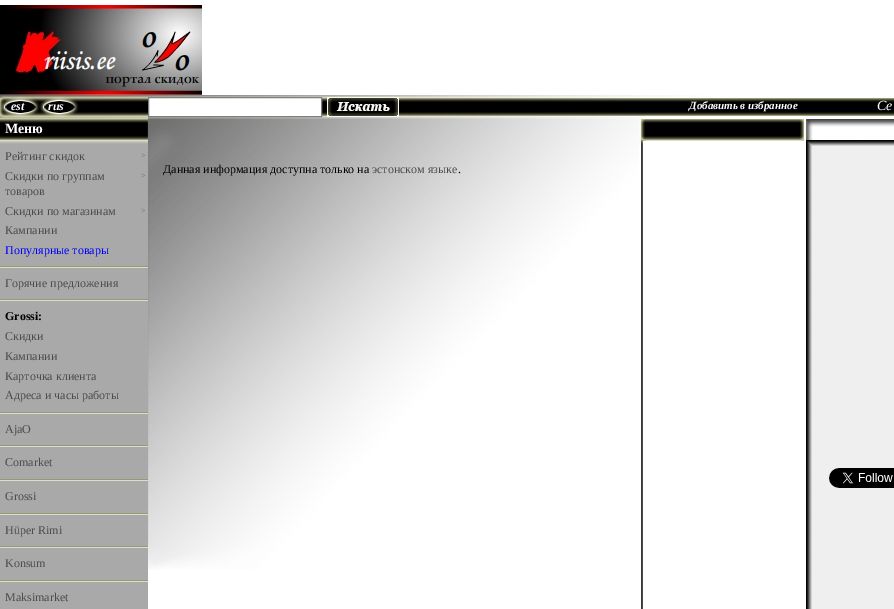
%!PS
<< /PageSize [894 609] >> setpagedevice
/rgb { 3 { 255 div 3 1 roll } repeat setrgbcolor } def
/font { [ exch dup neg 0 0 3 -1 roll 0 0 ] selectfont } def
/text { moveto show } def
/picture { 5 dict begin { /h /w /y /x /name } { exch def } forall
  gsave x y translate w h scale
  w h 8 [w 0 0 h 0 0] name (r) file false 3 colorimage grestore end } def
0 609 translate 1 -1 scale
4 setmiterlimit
255 255 255 rgb
0 0 894 609 rectfill
(img_01.rgb) 0 5 202 90 picture
(img_02.rgb) 0 95 148 24 picture
(img_03.rgb) 148 95 657 24 picture
148.5 97.5 moveto 173 0 rlineto 0 19 rlineto -173 0 rlineto closepath gsave fill grestore
128 128 128 rgb
stroke
(img_04.rgb) 327 97 72 20 picture
(img_05.rgb) 805 98 89 18 picture
(img_06.rgb) 0 119 148 27 picture
(img_07.rgb) 148 119 493 27 picture
(img_08.rgb) 641 119 163 27 picture
(img_09.rgb) 805 119 89 27 picture
169 169 169 rgb
0 146 148 463 rectfill
152 152 113 rgb
0 266 148 1 rectfill
220 220 207 rgb
0 267 148 1 rectfill
152 152 113 rgb
0 299 148 1 rectfill
220 220 207 rgb
0 300 148 1 rectfill
152 152 113 rgb
0 412 148 1 rectfill
220 220 207 rgb
0 413 148 1 rectfill
152 152 113 rgb
0 445 148 1 rectfill
220 220 207 rgb
0 446 148 1 rectfill
152 152 113 rgb
0 479 148 1 rectfill
220 220 207 rgb
0 480 148 1 rectfill
152 152 113 rgb
0 513 148 1 rectfill
220 220 207 rgb
0 514 148 1 rectfill
152 152 113 rgb
0 546 148 1 rectfill
220 220 207 rgb
0 547 148 1 rectfill
152 152 113 rgb
0 580 148 1 rectfill
220 220 207 rgb
0 581 148 1 rectfill
(img_10.rgb) 148 146 491 424 picture
(img_11.rgb) 641 146 2 463 picture
(img_12.rgb) 806 146 88 463 picture
(img_13.rgb) 829 468 65 20 picture
/LiberationSerif-BoldItalic 12 font
255 255 255 rgb
(est) 11 110 text
(rus) 48 110 text
/LiberationSerif-BoldItalic 11 font
(Добавить в избранное) 689 109 text
/LiberationSerif-Italic 14 font
(Се) 877 110 text
/LiberationSerif-Bold 14 font
(Меню) 5 133 text
/LiberationSerif-Regular 12 font
76 76 76 rgb
(Рейтинг скидок) 5 160 text
/LiberationSerif-Regular 8 font
102 102 102 rgb
(>) 141 158 text
/LiberationSerif-Regular 12 font
76 76 76 rgb
(Скидки по группам) 5 180 text
/LiberationSerif-Regular 8 font
102 102 102 rgb
(>) 141 178 text
/LiberationSerif-Regular 12 font
76 76 76 rgb
(товаров) 5 195 text
(Скидки по магазинам) 5 215 text
/LiberationSerif-Regular 8 font
102 102 102 rgb
(>) 141 213 text
/LiberationSerif-Regular 12 font
76 76 76 rgb
(Кампании) 5 234 text
0 0 255 rgb
(Популярные товары) 5 254 text
76 76 76 rgb
(Горячие предложения) 5 287 text
/LiberationSerif-Bold 12 font
0 0 0 rgb
(Grossi:) 5 320 text
/LiberationSerif-Regular 12 font
76 76 76 rgb
(Скидки) 5 340 text
(Кампании) 5 360 text
(Карточка клиента) 5 380 text
(Адреса и часы работы) 5 399 text
(AjaO) 5 433 text
(Comarket) 5 466 text
(Grossi) 5 500 text
(Hüper Rimi) 5 534 text
(Konsum) 5 567 text
(Maksimarket) 5 601 text
0 0 0 rgb
(Данная информация доступна только на) 163 173 text
76 76 76 rgb
(эстонском языке) 372 173 text
0 0 0 rgb
(.) 458 173 text
showpage
